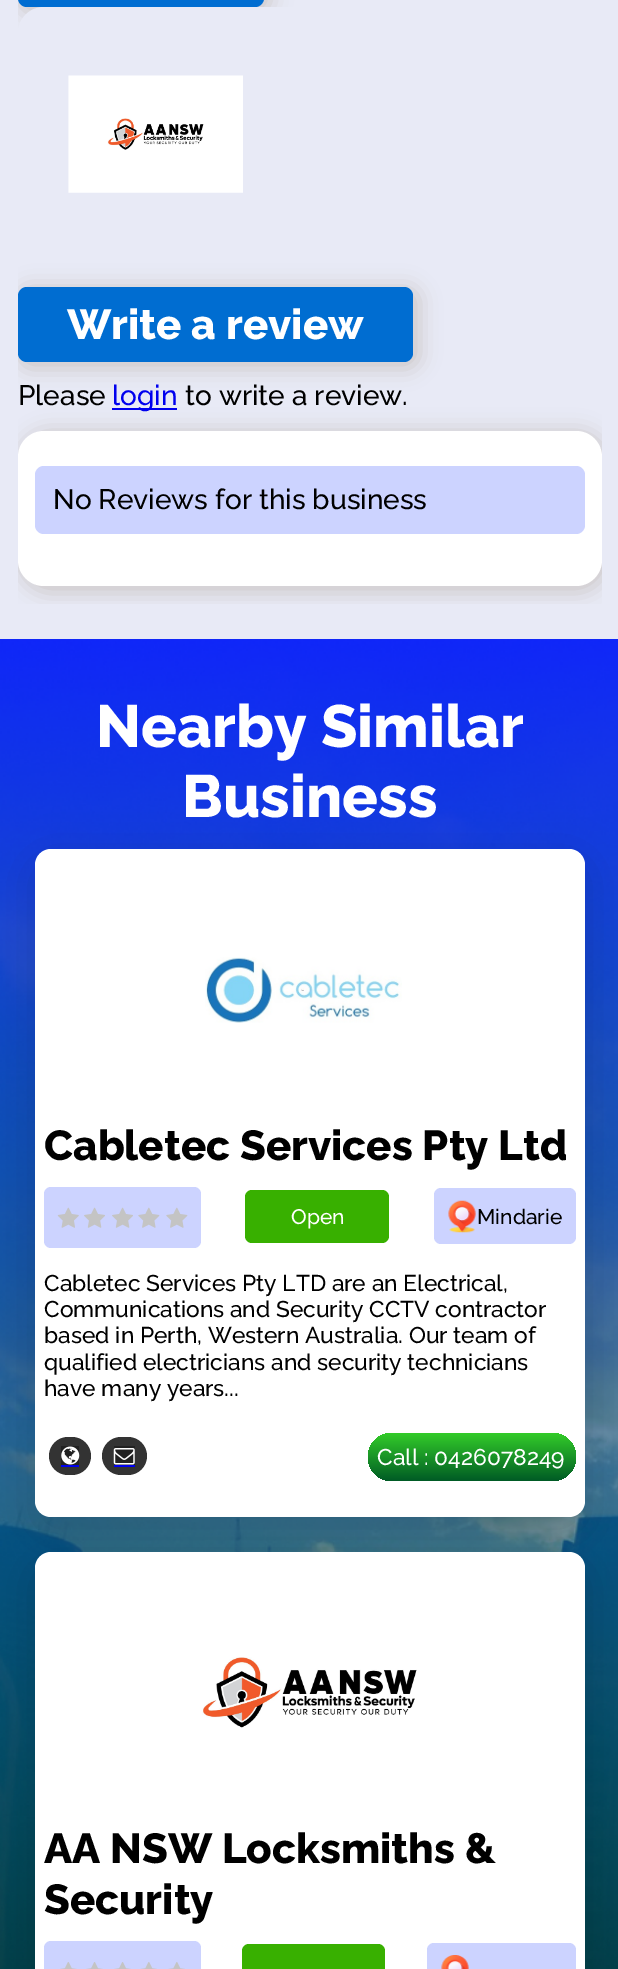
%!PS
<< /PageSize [618 1969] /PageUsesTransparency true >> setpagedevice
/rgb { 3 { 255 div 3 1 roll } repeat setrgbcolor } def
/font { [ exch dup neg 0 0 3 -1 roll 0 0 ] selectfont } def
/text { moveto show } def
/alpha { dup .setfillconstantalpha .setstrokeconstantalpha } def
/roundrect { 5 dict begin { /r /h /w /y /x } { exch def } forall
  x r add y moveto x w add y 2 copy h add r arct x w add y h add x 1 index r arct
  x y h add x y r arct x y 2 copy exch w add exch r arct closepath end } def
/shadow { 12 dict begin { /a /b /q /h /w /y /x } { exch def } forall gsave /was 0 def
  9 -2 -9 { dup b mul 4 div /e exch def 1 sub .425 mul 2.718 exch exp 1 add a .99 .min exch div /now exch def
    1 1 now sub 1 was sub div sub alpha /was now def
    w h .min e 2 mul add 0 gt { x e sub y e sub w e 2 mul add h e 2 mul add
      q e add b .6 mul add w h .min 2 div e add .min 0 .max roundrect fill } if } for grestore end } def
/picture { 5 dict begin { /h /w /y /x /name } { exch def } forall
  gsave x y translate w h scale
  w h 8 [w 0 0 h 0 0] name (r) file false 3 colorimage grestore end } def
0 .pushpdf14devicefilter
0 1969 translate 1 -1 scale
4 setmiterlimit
232 234 246 rgb
0 0 618 1969 rectfill
gsave
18 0 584 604 rectclip
205 201 201 rgb
18 -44 253 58 12 10.5 1 shadow
grestore
0 109 209 rgb
18 -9 246 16 9 roundrect fill
232 234 246 rgb
18 7 584 263 26 roundrect fill
(img_01.rgb) 68 75 175 118 picture
gsave
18 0 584 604 rectclip
205 201 201 rgb
18 287 402 82 12 10.5 1 shadow
grestore
0 109 209 rgb
18 287 395 75 9 roundrect fill
gsave
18 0 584 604 rectclip
205 201 201 rgb
18 431 591 162 30 10.5 1 shadow
grestore
0 0 238 rgb
112 408 65 2 rectfill
255 255 255 rgb
18 431 584 155 26 roundrect fill
204 211 255 rgb
35 466 550 68 9 roundrect fill
(img_02.rgb) 0 639 618 1330 picture
0 0 0 rgb
32 859 556 676 19 21 0.12 shadow
255 255 255 rgb
35 849 550 668 16 roundrect fill
(img_03.rgb) 205 957 197 66 picture
204 211 255 rgb
44 1187 157 61 7 roundrect fill
(img_04.rgb) 57 1207 22 21 picture
(img_05.rgb) 84 1207 21 21 picture
(img_05.rgb) 112 1207 21 21 picture
(img_06.rgb) 138 1207 22 21 picture
(img_06.rgb) 166 1207 22 21 picture
56 176 0 rgb
245 1190 144 53 7 roundrect fill
204 211 255 rgb
434 1188 142 56 7 roundrect fill
(img_07.rgb) 448 1200 28 33 picture
51 51 51 rgb
49 1437 42 38 19 roundrect fill
33 33 33 rgb
61 1446 18 19 rectfill
(img_08.rgb) 61 1446 19 19 picture
0 0 238 rgb
61 1465 18 2 rectfill
51 51 51 rgb
102 1437 45 38 19 roundrect fill
33 33 33 rgb
114 1446 21 19 rectfill
(img_09.rgb) 113 1448 22 17 picture
0 0 238 rgb
114 1465 21 2 rectfill
gsave 368 1433 208 48 24 roundrect clip newpath
<< /ShadingType 2 /ColorSpace /DeviceRGB /Coords [472 1433 472 1481] /Extend [true true] /Function << /FunctionType 2 /Domain [0 1] /C0 [0.2 0.8 0.161] /C1 [0 0.357 0.145] /N 1 >> >> shfill grestore
0 0 0 rgb
32 1563 556 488 19 21 0.12 shadow
255 255 255 rgb
35 1552 550 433 16 roundrect fill
(img_10.rgb) 202 1657 215 71 picture
204 211 255 rgb
44 1941 157 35 7 roundrect fill
(img_11.rgb) 60 1962 17 7 picture
(img_12.rgb) 86 1962 17 7 picture
(img_12.rgb) 114 1962 17 7 picture
(img_13.rgb) 140 1962 17 7 picture
(img_13.rgb) 168 1962 17 7 picture
56 176 0 rgb
242 1944 143 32 7 roundrect fill
204 211 255 rgb
427 1943 149 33 7 roundrect fill
(img_14.rgb) 441 1955 28 14 picture
/Raleway-ExtraBold 42 font
255 255 255 rgb
(Write a review) 67 339 text
/Raleway-Medium 28 font
0 0 0 rgb
(Please) 18 405 text
0 0 238 rgb
(login) 112 405 text
0 0 0 rgb
(to write a review.) 185 405 text
(No Reviews for this business) 53 509 text
/Raleway-ExtraBold 59.5 font
255 255 255 rgb
(Nearby Similar) 96 747 text
(Business) 182 817 text
/Raleway-ExtraBold 42 font
0 0 0 rgb
(Cabletec Services Pty Ltd) 44 1160 text
/Raleway-Medium 21 font
255 255 255 rgb
(Open) 291 1224 text
0 0 0 rgb
(Mindarie) 477 1224 text
/Raleway-Medium 22.75 font
(Cabletec Services Pty LTD are an Electrical,) 44 1291 text
(Communications and Security CCTV contractor) 44 1317 text
(based in Perth, Western Australia. Our team of) 44 1343 text
(qualified electricians and security technicians) 44 1370 text
(have many years...) 44 1396 text
255 255 255 rgb
(Call : 0426078249) 377 1465 text
/Raleway-ExtraBold 42 font
0 0 0 rgb
(AA NSW Locksmiths &) 44 1863 text
(Security) 44 1914 text
.poppdf14devicefilter showpage
